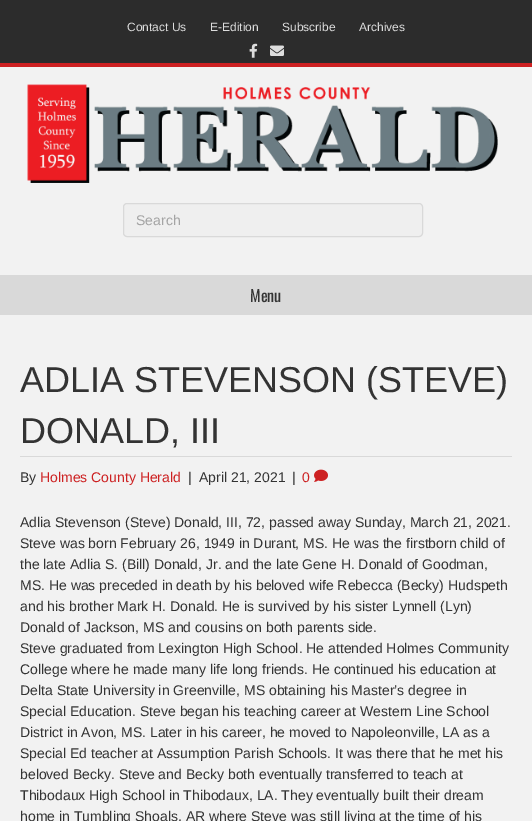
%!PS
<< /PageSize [532 821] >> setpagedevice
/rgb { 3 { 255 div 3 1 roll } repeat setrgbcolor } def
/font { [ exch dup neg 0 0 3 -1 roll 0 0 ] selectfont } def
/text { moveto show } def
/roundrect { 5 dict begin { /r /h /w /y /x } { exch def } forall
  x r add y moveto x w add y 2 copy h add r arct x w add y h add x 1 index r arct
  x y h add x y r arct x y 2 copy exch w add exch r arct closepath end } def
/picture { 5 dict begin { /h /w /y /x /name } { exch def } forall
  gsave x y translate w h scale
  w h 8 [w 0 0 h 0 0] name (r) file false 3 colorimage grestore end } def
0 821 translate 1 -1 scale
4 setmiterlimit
242 242 242 rgb
0 0 532 821 rectfill
44 44 44 rgb
0 0 532 63 rectfill
205 33 34 rgb
0 63 532 4 rectfill
(img_01.rgb) 249 43 9 15 picture
(img_02.rgb) 270 45 14 11 picture
(img_03.rgb) 27 84 471 99 picture
239 239 239 rgb
123.5 203.5 299 33 3.5 roundrect gsave fill grestore
217 217 217 rgb
stroke
0 275 532 40 rectfill
20 456 492 1 rectfill
(img_04.rgb) 314 469 14 13 picture
/LiberationSans-Regular 12 font
221 221 221 rgb
(Contact Us) 127 31 text
(E-Edition) 210 31 text
(Subscribe) 282 31 text
(Archives) 359 31 text
/LiberationSans-Regular 14 font
164 164 164 rgb
(Search) 136 225 text
/Oswald-Regular 16 font
51 51 51 rgb
(Menu) 250 302 text
/LiberationSans-Regular 36 font
(ADLIA STEVENSON \(STEVE\)) 20 392 text
(DONALD, III) 20 443 text
/LiberationSans-Regular 14 font
(By) 20 482 text
205 33 34 rgb
(Holmes County Herald) 40 482 text
51 51 51 rgb
(|) 188 482 text
(April 21, 2021) 199 482 text
(|) 292 482 text
205 33 34 rgb
(0) 302 482 text
51 51 51 rgb
(Adlia Stevenson \(Steve\) Donald, III, 72, passed away Sunday, March 21, 2021.) 20 527 text
(Steve was born February 26, 1949 in Durant, MS. He was the firstborn child of) 20 548 text
(the late Adlia S. \(Bill\) Donald, Jr. and the late Gene H. Donald of Goodman,) 20 569 text
(MS. He was preceded in death by his beloved wife Rebecca \(Becky\) Hudspeth) 20 590 text
(and his brother Mark H. Donald. He is survived by his sister Lynnell \(Lyn\)) 20 611 text
(Donald of Jackson, MS and cousins on both parents side.) 20 632 text
(Steve graduated from Lexington High School. He attended Holmes Community) 20 653 text
(College where he made many life long friends. He continued his education at) 20 674 text
(Delta State University in Greenville, MS obtaining his Master’s degree in) 20 695 text
(Special Education. Steve began his teaching career at Western Line School) 20 716 text
(District in Avon, MS. Later in his career, he moved to Napoleonville, LA as a) 20 737 text
(Special Ed teacher at Assumption Parish Schools. It was there that he met his) 20 758 text
(beloved Becky. Steve and Becky both eventually transferred to teach at) 20 779 text
(Thibodaux High School in Thibodaux, LA. They eventually built their dream) 20 800 text
(home in Tumbling Shoals, AR where Steve was still living at the time of his) 20 821 text
showpage
